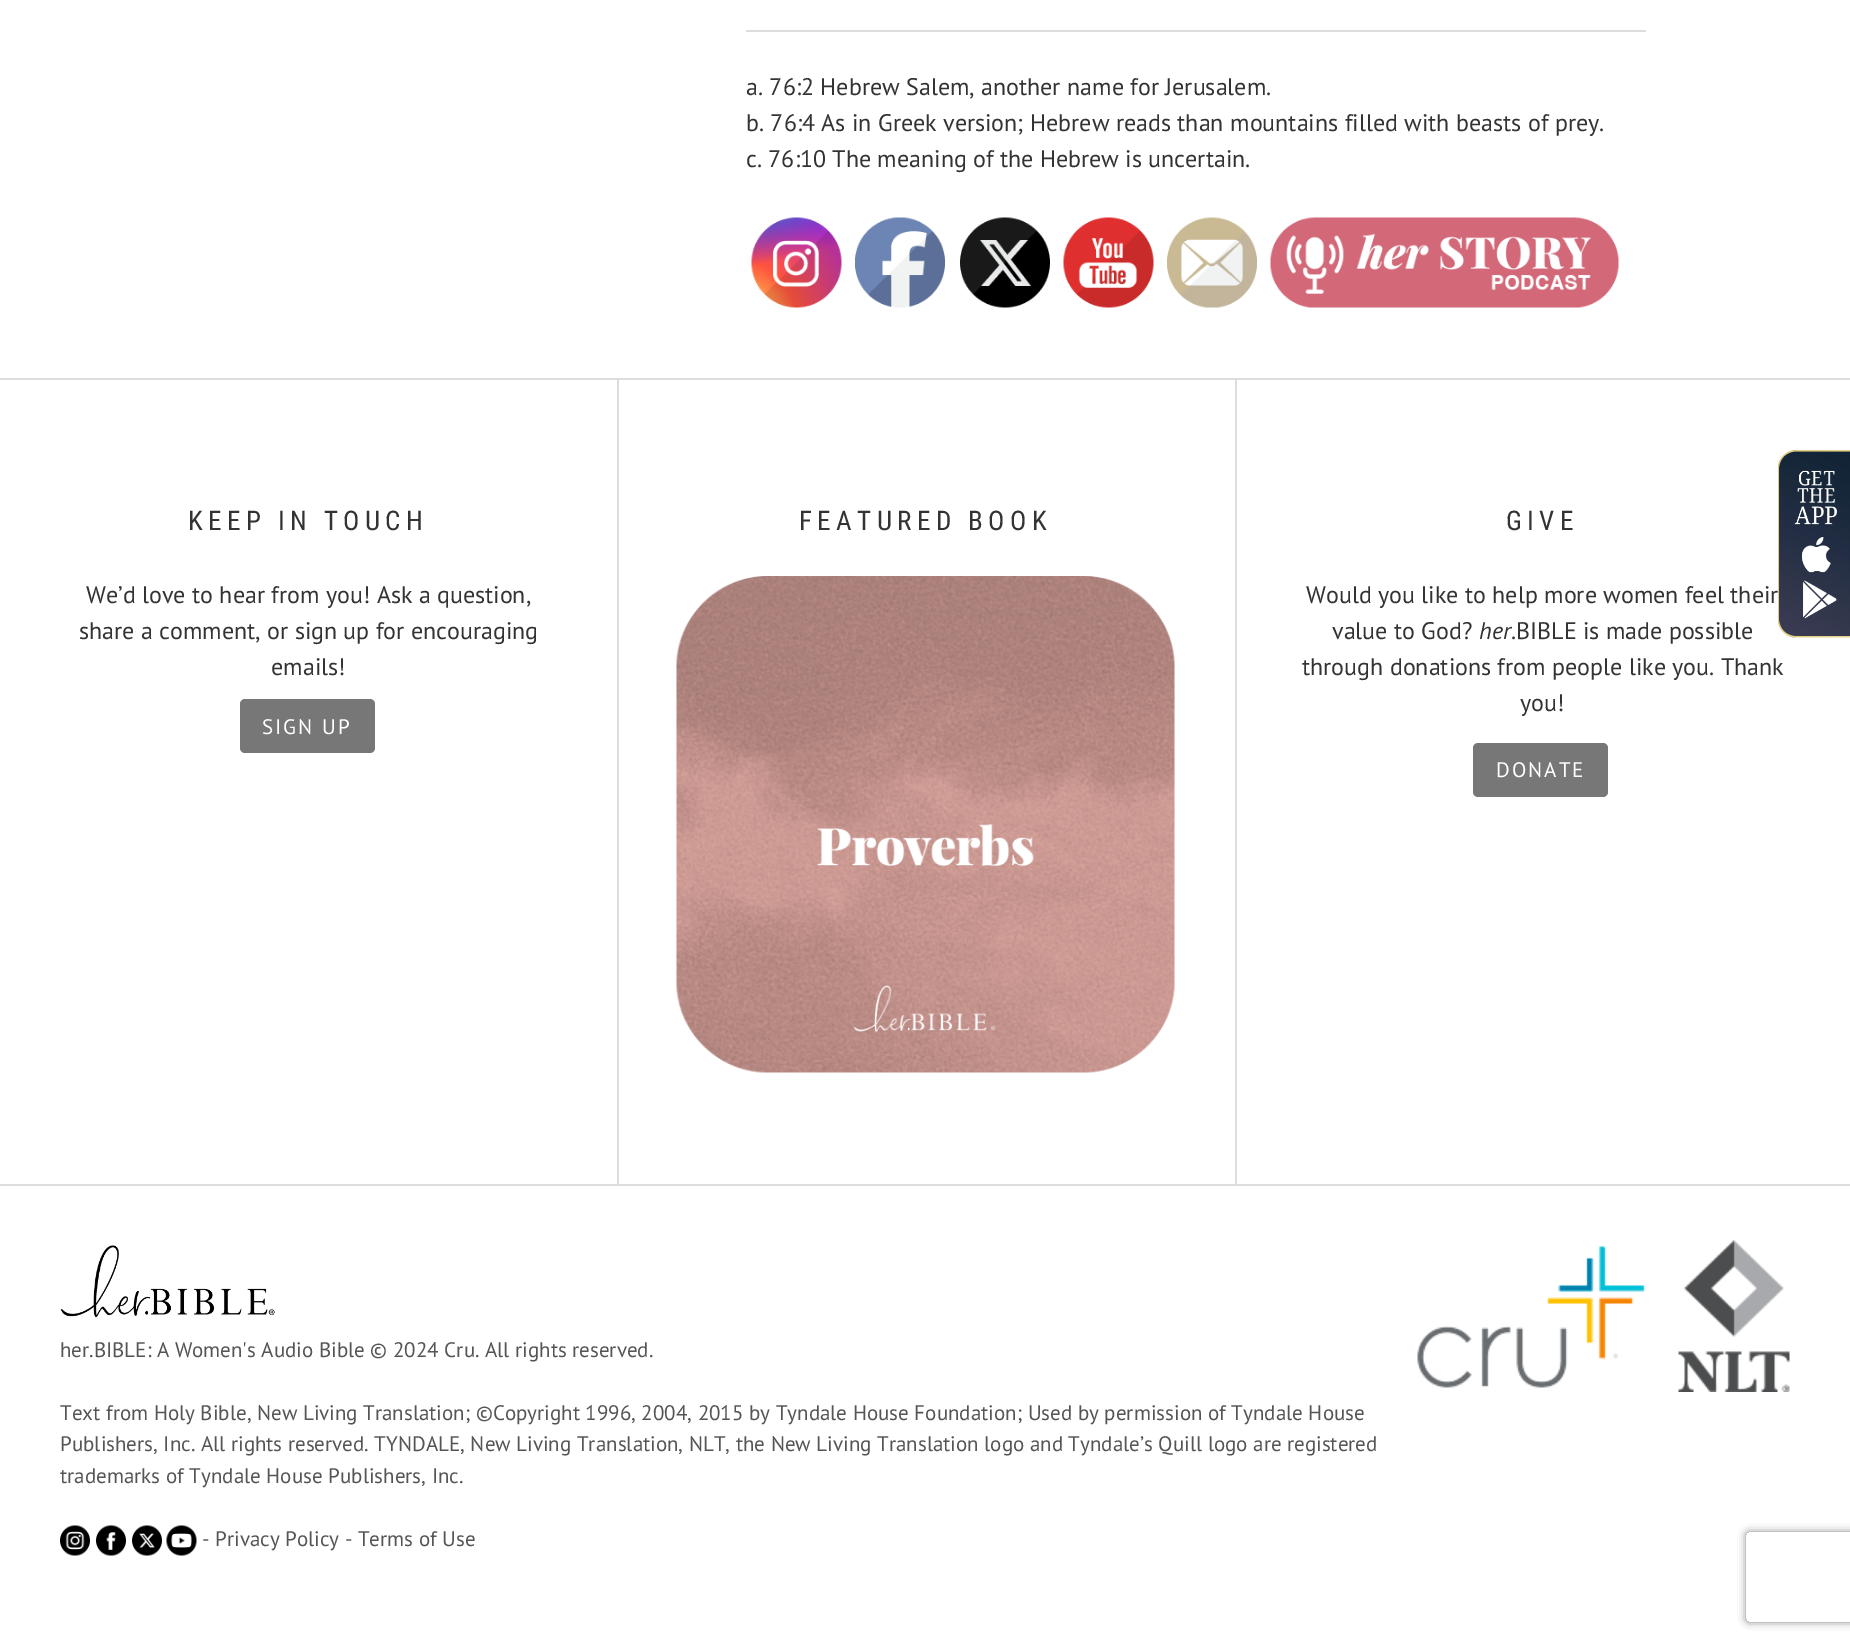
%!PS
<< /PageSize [1850 1642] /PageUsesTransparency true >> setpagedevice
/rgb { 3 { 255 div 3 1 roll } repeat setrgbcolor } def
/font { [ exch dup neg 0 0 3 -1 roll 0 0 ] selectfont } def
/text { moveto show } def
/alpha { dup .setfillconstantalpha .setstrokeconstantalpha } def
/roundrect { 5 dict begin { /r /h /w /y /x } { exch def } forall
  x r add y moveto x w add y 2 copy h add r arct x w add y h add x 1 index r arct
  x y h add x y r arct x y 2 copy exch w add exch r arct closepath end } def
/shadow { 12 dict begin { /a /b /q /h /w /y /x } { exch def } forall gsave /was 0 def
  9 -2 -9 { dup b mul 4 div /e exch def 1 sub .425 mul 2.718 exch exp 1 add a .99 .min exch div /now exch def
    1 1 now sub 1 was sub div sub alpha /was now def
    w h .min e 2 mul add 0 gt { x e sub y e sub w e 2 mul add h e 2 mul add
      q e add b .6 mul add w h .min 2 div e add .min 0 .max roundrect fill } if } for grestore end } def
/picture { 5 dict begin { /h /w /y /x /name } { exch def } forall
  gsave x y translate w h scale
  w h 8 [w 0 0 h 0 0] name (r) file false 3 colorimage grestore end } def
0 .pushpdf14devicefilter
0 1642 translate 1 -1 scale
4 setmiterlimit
255 255 255 rgb
0 0 1850 1642 rectfill
221 221 221 rgb
0 378 1850 2 rectfill
746 30 900 2 rectfill
(img_01.rgb) 751 217 91 91 picture
(img_02.rgb) 855 217 90 91 picture
(img_03.rgb) 960 217 90 91 picture
(img_04.rgb) 1063 217 91 91 picture
(img_05.rgb) 1167 217 90 91 picture
(img_06.rgb) 1270 217 349 91 picture
0 1184 1850 2 rectfill
119 119 119 rgb
240 699 135 54 5 roundrect fill
221 221 221 rgb
617 380 2 804 rectfill
(img_07.rgb) 676 576 499 497 picture
1235 380 2 804 rectfill
119 119 119 rgb
1473 743 135 54 5 roundrect fill
(img_08.rgb) 60 1245 215 73 picture
(img_09.rgb) 1417 1240 373 152 picture
(img_10.rgb) 60 1525 30 31 picture
(img_11.rgb) 96 1525 30 31 picture
(img_12.rgb) 132 1525 30 31 picture
(img_13.rgb) 166 1525 31 31 picture
gsave
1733 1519 moveto 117 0 rlineto 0 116 rlineto -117 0 rlineto closepath 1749 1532 moveto 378 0 rlineto 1.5 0 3 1.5 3 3 rcurveto 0 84 rlineto 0 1.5 -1.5 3 -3 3 rcurveto -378 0 rlineto -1.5 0 -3 -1.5 -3 -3 rcurveto 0 -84 rlineto 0 -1.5 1.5 -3 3 -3 rcurveto closepath eoclip newpath
128 128 128 rgb
1746 1532 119 90 3 4 1 shadow
grestore
/PTSans-Regular 24 font
51 51 51 rgb
(a. 76:2 Hebrew Salem, another name for Jerusalem.) 746 95 text
(b. 76:4 As in Greek version; Hebrew reads than mountains filled with beasts of prey.) 746 131 text
(c. 76:10 The meaning of the Hebrew is uncertain.) 746 167 text
/RobotoCondensed-Regular 27 font
188 530 moveto 5.4 0 (KEEP IN TOUCH) ashow
/PTSans-Regular 24 font
(We’d love to hear from you! Ask a question,) 86 603 text
(share a comment, or sign up for encouraging) 79 639 text
(emails!) 271 675 text
/PTSans-Regular 21 font
255 255 255 rgb
262 734 moveto 2 0 (SIGN UP) ashow
/RobotoCondensed-Regular 27 font
51 51 51 rgb
799 530 moveto 5.4 0 (FEATURED BOOK) ashow
1506 530 moveto 5.4 0 (GIVE) ashow
/PTSans-Regular 24 font
(Would you like to help more women feel their) 1306 603 text
(value to God?) 1332 639 text
/PTSans-Italic 24 font
(her) 1479 639 text
/PTSans-Regular 24 font
(.BIBLE is made possible) 1511 639 text
(through donations from people like you. Thank) 1302 675 text
(you!) 1520 711 text
/PTSans-Regular 21 font
255 255 255 rgb
1496 777 moveto 2 0 (DONATE) ashow
85 85 85 rgb
(her.BIBLE: A Women's Audio Bible © 2024 Cru. All rights reserved.) 60 1357 text
(Text from Holy Bible, New Living Translation; ©Copyright 1996, 2004, 2015 by Tyndale House Foundation; Used by permission of Tyndale House) 60 1420 text
(Publishers, Inc. All rights reserved. TYNDALE, New Living Translation, NLT, the New Living Translation logo and Tyndale’s Quill logo are registered) 60 1451 text
(trademarks of Tyndale House Publishers, Inc.) 60 1483 text
(- Privacy Policy - Terms of Use) 202 1546 text
(img_14.rgb) 1778 450 72 188 picture
.poppdf14devicefilter showpage
